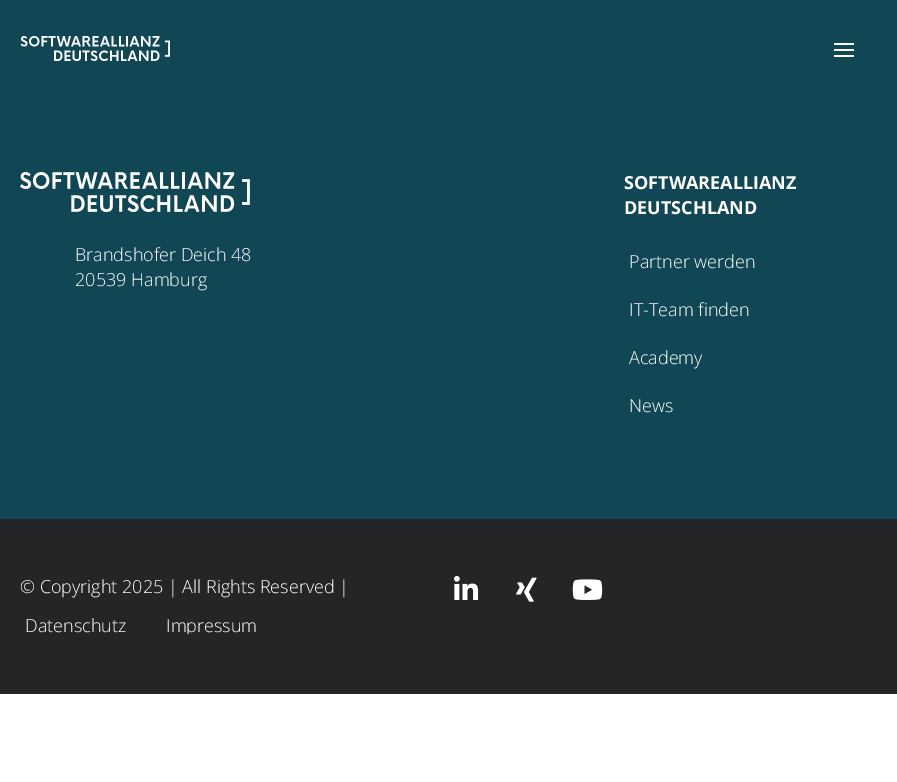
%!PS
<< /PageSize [897 782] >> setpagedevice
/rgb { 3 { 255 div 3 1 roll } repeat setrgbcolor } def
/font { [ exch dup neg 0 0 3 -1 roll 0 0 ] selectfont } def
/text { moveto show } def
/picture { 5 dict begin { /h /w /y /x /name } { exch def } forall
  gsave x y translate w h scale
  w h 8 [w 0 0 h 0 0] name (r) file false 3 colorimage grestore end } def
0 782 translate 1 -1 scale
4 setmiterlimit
255 255 255 rgb
0 0 897 782 rectfill
17 70 84 rgb
0 0 897 519 rectfill
(img_01.rgb) 20 36 150 25 picture
255 255 255 rgb
834 43 20 2 rectfill
834 49 20 2 rectfill
834 55 20 2 rectfill
(img_02.rgb) 20 172 230 40 picture
36 37 38 rgb
0 519 897 175 rectfill
(img_03.rgb) 454 575 25 25 picture
(img_04.rgb) 516 577 21 25 picture
(img_05.rgb) 572 579 31 21 picture
/OpenSans-Light 18 font
255 255 255 rgb
(Brandshofer Deich 48) 75 261 text
(20539 Hamburg) 75 286 text
/OpenSans-Bold 18 font
(SOFTWAREALLIANZ) 624 189 text
(DEUTSCHLAND) 624 214 text
/OpenSans-Light 18 font
(Partner werden) 629 268 text
(IT-Team finden) 629 316 text
(Academy) 629 364 text
(News) 629 412 text
(© Copyright 2025 | All Rights Reserved |) 20 593 text
(Datenschutz) 25 632 text
gsave
146 599 132 35 rectclip
(Impressum) 166 632 text
grestore
showpage
